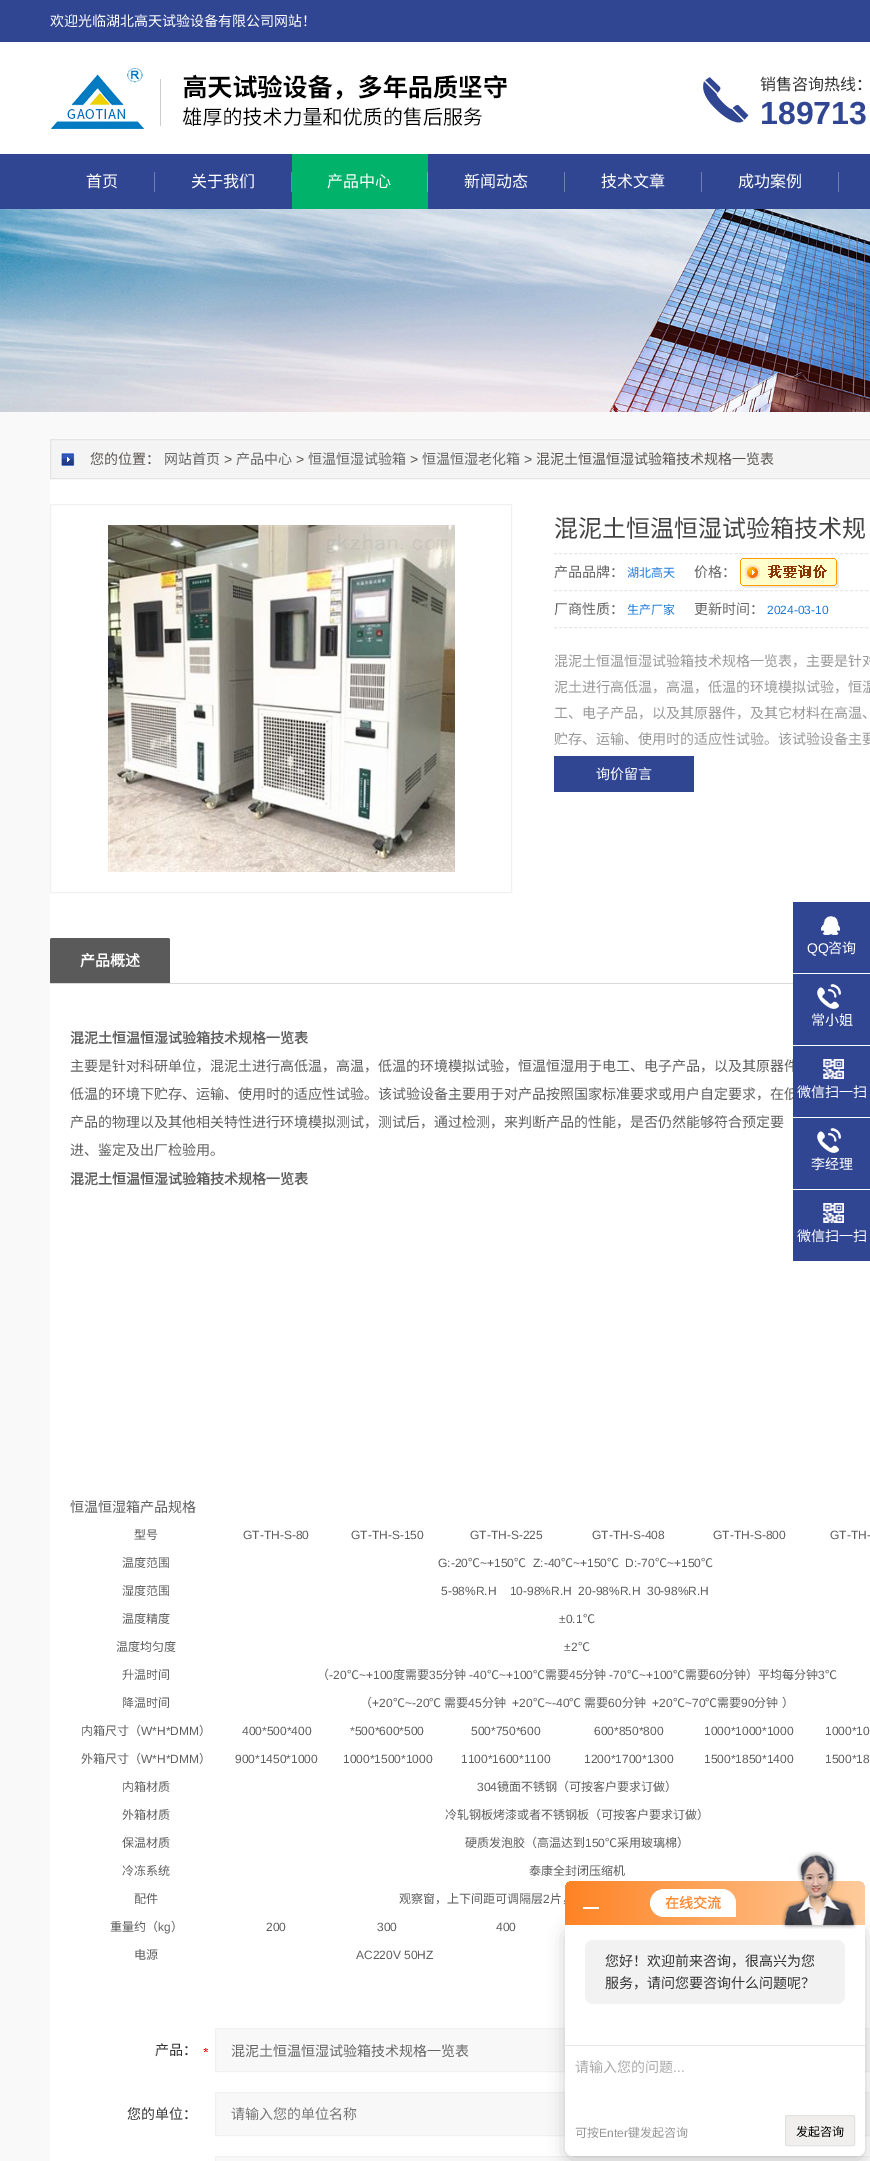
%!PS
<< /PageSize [870 2161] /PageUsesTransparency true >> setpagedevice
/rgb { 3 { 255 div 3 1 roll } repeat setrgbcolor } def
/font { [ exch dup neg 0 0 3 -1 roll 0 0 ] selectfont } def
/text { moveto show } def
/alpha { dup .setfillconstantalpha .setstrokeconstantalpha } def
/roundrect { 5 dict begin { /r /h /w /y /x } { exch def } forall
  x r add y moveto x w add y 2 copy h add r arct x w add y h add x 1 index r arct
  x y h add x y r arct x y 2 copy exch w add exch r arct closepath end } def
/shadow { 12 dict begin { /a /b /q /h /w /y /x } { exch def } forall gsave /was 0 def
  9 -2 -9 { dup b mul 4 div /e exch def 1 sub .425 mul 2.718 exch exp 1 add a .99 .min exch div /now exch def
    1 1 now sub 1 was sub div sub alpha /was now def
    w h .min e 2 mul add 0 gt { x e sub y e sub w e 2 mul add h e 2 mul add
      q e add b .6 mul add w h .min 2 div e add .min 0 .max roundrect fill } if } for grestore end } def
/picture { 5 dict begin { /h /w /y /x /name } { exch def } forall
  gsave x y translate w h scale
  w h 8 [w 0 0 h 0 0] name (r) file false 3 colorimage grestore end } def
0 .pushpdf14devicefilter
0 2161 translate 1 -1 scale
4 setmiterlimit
255 255 255 rgb
0 0 870 2161 rectfill
49 70 147 rgb
0 0 870 42 rectfill
(img_01.rgb) 51 68 456 61 picture
(img_02.rgb) 703 77 46 46 picture
0 154 870 55 rectfill
111 126 179 rgb
154 172 1 20 rectfill
291 172 1 20 rectfill
0 178 106 rgb
292 154 136 55 rectfill
77 201 151 rgb
427 172 1 20 rectfill
111 126 179 rgb
564 172 1 20 rectfill
701 172 1 20 rectfill
838 172 1 20 rectfill
(img_03.rgb) 0 209 870 203 picture
249 249 249 rgb
0 412 870 1749 rectfill
255 255 255 rgb
50 479 820 1682 rectfill
244 244 244 rgb
50.5 439.5 moveto 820 0 rlineto 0 39 rlineto -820 0 rlineto closepath gsave fill grestore
228 228 228 rgb
stroke
(img_04.rgb) 61 453 14 13 picture
241 241 241 rgb
50.5 504.5 461 388 rectstroke
(img_05.rgb) 108 525 347 347 picture
231 231 231 rgb
[3 2.02] 0 setdash
554 553.5 moveto 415 0 rlineto stroke
554 590.5 moveto 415 0 rlineto stroke
(img_06.rgb) 740 558 99 30 picture
554 627.5 moveto 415 0 rlineto stroke
49 70 147 rgb
554 756 140 36 rectfill
217 217 217 rgb
50 983 743 1 rectfill
90 90 90 rgb
52 938 moveto 116 0 rlineto 1 0 2 1 2 2 rcurveto 0 43 rlineto -120 0 rlineto 0 -43 rlineto 0 -1 1 -2 2 -2 rcurveto closepath fill
(img_07.rgb) 203 2048 5 4 picture
248 248 248 rgb
215.5 2028.5 moveto 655 0 rlineto 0 43 rlineto -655 0 rlineto closepath gsave fill grestore
241 241 241 rgb
[] 0 setdash
stroke
248 248 248 rgb
215.5 2092.5 moveto 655 0 rlineto 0 43 rlineto -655 0 rlineto closepath gsave fill grestore
241 241 241 rgb
stroke
248 248 248 rgb
215.5 2156.5 moveto 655 0 rlineto 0 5 rlineto -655 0 rlineto closepath gsave fill grestore
241 241 241 rgb
stroke
49 70 147 rgb
793 902 77 71 rectfill
(img_08.rgb) 821 916 19 19 picture
793 974 77 71 rectfill
(img_09.rgb) 817 984 24 25 picture
793 1118 77 71 rectfill
(img_09.rgb) 817 1128 24 25 picture
793 1190 77 71 rectfill
(img_10.rgb) 823 1203 21 20 picture
0 0 0 rgb
565 1929 300 231 8 8 0.2 shadow
255 255 255 rgb
565 1925 moveto 300 0 rlineto 0 223 rlineto 0 4.5 -3.5 8 -8 8 rcurveto -284 0 rlineto -4.5 0 -8 -3.5 -8 -8 rcurveto closepath fill
242 242 242 rgb
585 1940 260 64 8 roundrect fill
234 234 234 rgb
565 2045 300 1 rectfill
240 239 237 rgb
785.5 2115.5 69 30 1.5 roundrect gsave fill grestore
226 226 226 rgb
stroke
/NotoSansCJKSC-Regular 14 font
255 255 255 rgb
(欢迎光临湖北高天试验设备有限公司网站！) 50 26 text
/NotoSansCJKSC-Regular 16 font
51 51 51 rgb
(销售咨询热线：) 760 90 text
/LiberationSans-Bold 32 font
49 70 147 rgb
(189713) 760 124 text
/NotoSansCJKSC-Regular 16 font
255 255 255 rgb
(首页) 86 187 text
(关于我们) 191 187 text
(产品中心) 327 187 text
(新闻动态) 464 187 text
(技术文章) 601 187 text
(成功案例) 738 187 text
/NotoSansCJKSC-Regular 14 font
89 84 80 rgb
(您的位置：) 90 464 text
102 102 102 rgb
(网站首页) 164 464 text
/LiberationSans-Regular 14 font
89 84 80 rgb
(>) 224 464 text
/NotoSansCJKSC-Regular 14 font
102 102 102 rgb
(产品中心) 236 464 text
/LiberationSans-Regular 14 font
89 84 80 rgb
(>) 296 464 text
/NotoSansCJKSC-Regular 14 font
102 102 102 rgb
(恒温恒湿试验箱) 308 464 text
/LiberationSans-Regular 14 font
89 84 80 rgb
(>) 410 464 text
/NotoSansCJKSC-Regular 14 font
102 102 102 rgb
(恒温恒湿老化箱) 422 464 text
/LiberationSans-Regular 14 font
89 84 80 rgb
(>) 524 464 text
/NotoSansCJKSC-Regular 14 font
(混泥土恒温恒湿试验箱技术规格一览表) 536 464 text
/NotoSansCJKSC-Regular 24 font
68 68 68 rgb
(混泥土恒温恒湿试验箱技术规) 554 537 text
/NotoSansCJKSC-Regular 14 font
102 102 102 rgb
(产品品牌：) 554 577 text
/NotoSansCJKSC-Regular 12 font
29 122 217 rgb
(湖北高天) 627 577 text
/NotoSansCJKSC-Regular 14 font
102 102 102 rgb
(价格：) 694 577 text
(厂商性质：) 554 614 text
/NotoSansCJKSC-Regular 12 font
29 122 217 rgb
(生产厂家) 627 614 text
/NotoSansCJKSC-Regular 14 font
102 102 102 rgb
(更新时间：) 694 614 text
/LiberationSans-Regular 12 font
29 122 217 rgb
(2024-03-10) 767 614 text
/NotoSansCJKSC-Regular 14 font
151 151 151 rgb
(混泥土恒温恒湿试验箱技术规格一览表，主要是针对) 554 666 text
(泥土进行高低温，高温，低温的环境模拟试验，恒温) 554 692 text
(工、电子产品，以及其原器件，及其它材料在高温、) 554 718 text
(贮存、运输、使用时的适应性试验。该试验设备主要) 554 744 text
255 255 255 rgb
(询价留言) 596 779 text
/NotoSansCJKSC-Bold 15 font
(产品概述) 80 966 text
/NotoSansCJKSC-Bold 14 font
94 94 94 rgb
(混泥土恒温恒湿试验箱技术规格一览表) 70 1043 text
/NotoSansCJKSC-Regular 14 font
(主要是针对科研单位，混泥土进行高低温，高温，低温的环境模拟试验，恒温恒湿用于电工、电子产品，以及其原器件) 70 1071 text
(低温的环境下贮存、运输、使用时的适应性试验。该试验设备主要用于对产品按照国家标准要求或用户自定要求，在低) 70 1099 text
(产品的物理以及其他相关特性进行环境模拟测试，测试后，通过检测，来判断产品的性能，是否仍然能够符合预定要) 70 1127 text
(进、鉴定及出厂检验用。) 70 1155 text
/NotoSansCJKSC-Bold 14 font
(混泥土恒温恒湿试验箱技术规格一览表) 70 1184 text
/NotoSansCJKSC-Regular 14 font
(恒温恒湿箱产品规格) 70 1512 text
/NotoSansCJKSC-Regular 12 font
(型号) 134 1539 text
/LiberationSans-Regular 12 font
(GT-TH-S-80) 243 1539 text
(GT-TH-S-150) 351 1539 text
(GT-TH-S-225) 470 1539 text
(GT-TH-S-408) 592 1539 text
(GT-TH-S-800) 713 1539 text
(GT-TH-) 830 1539 text
/NotoSansCJKSC-Regular 12 font
(温度范围) 122 1567 text
/LiberationSans-Regular 12 font
(G:-20) 438 1567 text
/NotoSansCJKSC-Regular 12 font
(℃) 468 1567 text
/LiberationSans-Regular 12 font
(~+150) 480 1567 text
/NotoSansCJKSC-Regular 12 font
(℃) 514 1567 text
/LiberationSans-Regular 12 font
(Z:-40) 533 1567 text
/NotoSansCJKSC-Regular 12 font
(℃) 561 1567 text
/LiberationSans-Regular 12 font
(~+150) 573 1567 text
/NotoSansCJKSC-Regular 12 font
(℃) 607 1567 text
/LiberationSans-Regular 12 font
(D:-70) 625 1567 text
/NotoSansCJKSC-Regular 12 font
(℃) 655 1567 text
/LiberationSans-Regular 12 font
(~+150) 667 1567 text
/NotoSansCJKSC-Regular 12 font
(℃) 701 1567 text
(湿度范围) 122 1595 text
/LiberationSans-Regular 12 font
(5-98%R.H    10-98%R.H  20-98%R.H  30-98%R.H) 441 1595 text
/NotoSansCJKSC-Regular 12 font
(温度精度) 122 1623 text
/LiberationSans-Regular 12 font
(±0.1) 559 1623 text
/NotoSansCJKSC-Regular 12 font
(℃) 583 1623 text
(温度均匀度) 116 1651 text
/LiberationSans-Regular 12 font
(±2) 564 1651 text
/NotoSansCJKSC-Regular 12 font
(℃) 578 1651 text
(升温时间) 122 1679 text
(（) 317 1679 text
/LiberationSans-Regular 12 font
(-20) 329 1679 text
/NotoSansCJKSC-Regular 12 font
(℃) 347 1679 text
/LiberationSans-Regular 12 font
(~+100) 359 1679 text
/NotoSansCJKSC-Regular 12 font
(度需要) 393 1679 text
/LiberationSans-Regular 12 font
(35) 429 1679 text
/NotoSansCJKSC-Regular 12 font
(分钟) 442 1679 text
/LiberationSans-Regular 12 font
(-40) 469 1679 text
/NotoSansCJKSC-Regular 12 font
(℃) 487 1679 text
/LiberationSans-Regular 12 font
(~+100) 499 1679 text
/NotoSansCJKSC-Regular 12 font
(℃需要) 533 1679 text
/LiberationSans-Regular 12 font
(45) 569 1679 text
/NotoSansCJKSC-Regular 12 font
(分钟) 582 1679 text
/LiberationSans-Regular 12 font
(-70) 609 1679 text
/NotoSansCJKSC-Regular 12 font
(℃) 627 1679 text
/LiberationSans-Regular 12 font
(~+100) 639 1679 text
/NotoSansCJKSC-Regular 12 font
(℃需要) 673 1679 text
/LiberationSans-Regular 12 font
(60) 709 1679 text
/NotoSansCJKSC-Regular 12 font
(分钟）平均每分钟) 722 1679 text
/LiberationSans-Regular 12 font
(3) 818 1679 text
/NotoSansCJKSC-Regular 12 font
(℃) 825 1679 text
(降温时间) 122 1707 text
(（) 360 1707 text
/LiberationSans-Regular 12 font
(+20) 372 1707 text
/NotoSansCJKSC-Regular 12 font
(℃) 393 1707 text
/LiberationSans-Regular 12 font
(~-20) 405 1707 text
/NotoSansCJKSC-Regular 12 font
(℃) 429 1707 text
(需要) 444 1707 text
/LiberationSans-Regular 12 font
(45) 468 1707 text
/NotoSansCJKSC-Regular 12 font
(分钟) 482 1707 text
/LiberationSans-Regular 12 font
(+20) 512 1707 text
/NotoSansCJKSC-Regular 12 font
(℃) 533 1707 text
/LiberationSans-Regular 12 font
(~-40) 545 1707 text
/NotoSansCJKSC-Regular 12 font
(℃) 569 1707 text
(需要) 584 1707 text
/LiberationSans-Regular 12 font
(60) 608 1707 text
/NotoSansCJKSC-Regular 12 font
(分钟) 622 1707 text
/LiberationSans-Regular 12 font
(+20) 652 1707 text
/NotoSansCJKSC-Regular 12 font
(℃) 673 1707 text
/LiberationSans-Regular 12 font
(~70) 685 1707 text
/NotoSansCJKSC-Regular 12 font
(℃需要) 705 1707 text
/LiberationSans-Regular 12 font
(90) 741 1707 text
/NotoSansCJKSC-Regular 12 font
(分钟) 754 1707 text
(）) 782 1707 text
(内箱尺寸（) 81 1735 text
/LiberationSans-Regular 12 font
(W*H*DMM) 141 1735 text
/NotoSansCJKSC-Regular 12 font
(）) 199 1735 text
/LiberationSans-Regular 12 font
(400*500*400) 242 1735 text
(*500*600*500) 350 1735 text
(500*750*600) 471 1735 text
(600*850*800) 594 1735 text
(1000*1000*1000) 704 1735 text
(1000*10) 825 1735 text
/NotoSansCJKSC-Regular 12 font
(外箱尺寸（) 81 1763 text
/LiberationSans-Regular 12 font
(W*H*DMM) 141 1763 text
/NotoSansCJKSC-Regular 12 font
(）) 199 1763 text
/LiberationSans-Regular 12 font
(900*1450*1000) 235 1763 text
(1000*1500*1000) 343 1763 text
(1100*1600*1100) 461 1763 text
(1200*1700*1300) 584 1763 text
(1500*1850*1400) 704 1763 text
(1500*18) 825 1763 text
/NotoSansCJKSC-Regular 12 font
(内箱材质) 122 1791 text
/LiberationSans-Regular 12 font
(304) 477 1791 text
/NotoSansCJKSC-Regular 12 font
(镜面不锈钢（可按客户要求订做）) 497 1791 text
(外箱材质) 122 1819 text
(冷轧钢板烤漆或者不锈钢板（可按客户要求订做）) 445 1819 text
(保温材质) 122 1847 text
(硬质发泡胶（高温达到) 465 1847 text
/LiberationSans-Regular 12 font
(150) 585 1847 text
/NotoSansCJKSC-Regular 12 font
(℃采用玻璃棉）) 605 1847 text
(冷冻系统) 122 1875 text
(泰康全封闭压缩机) 529 1875 text
(配件) 134 1903 text
(观察窗，上下间距可调隔层) 399 1903 text
/LiberationSans-Regular 12 font
(2) 543 1903 text
/NotoSansCJKSC-Regular 12 font
(片，) 550 1903 text
(重量约（) 110 1931 text
/LiberationSans-Regular 12 font
(kg) 158 1931 text
/NotoSansCJKSC-Regular 12 font
(）) 171 1931 text
/LiberationSans-Regular 12 font
(200) 266 1931 text
(300) 377 1931 text
(400) 496 1931 text
/NotoSansCJKSC-Regular 12 font
(电源) 134 1959 text
/LiberationSans-Regular 12 font
(AC220V 50HZ) 356 1959 text
/NotoSansCJKSC-Regular 14 font
51 51 51 rgb
(产品：) 155 2055 text
102 102 102 rgb
(混泥土恒温恒湿试验箱技术规格一览表) 231 2056 text
51 51 51 rgb
(您的单位：) 127 2119 text
117 117 117 rgb
(请输入您的单位名称) 231 2119 text
/LiberationSans-Regular 14 font
255 255 255 rgb
(QQ) 807 953 text
/NotoSansCJKSC-Regular 14 font
(咨询) 828 953 text
(常小姐) 811 1025 text
49 70 147 rgb
793 1046 77 71 rectfill
(img_10.rgb) 823 1059 21 20 picture
255 255 255 rgb
(微信扫一扫) 797 1097 text
(李经理) 811 1169 text
(微信扫一扫) 797 1241 text
gsave 573 1881 moveto 284 0 rlineto 4.5 0 8 3.5 8 8 rcurveto 0 36 rlineto -300 0 rlineto 0 -36 rlineto 0 -4.5 3.5 -8 8 -8 rcurveto closepath clip newpath
<< /ShadingType 2 /ColorSpace /DeviceRGB /Coords [565 1903 865 1903] /Extend [true true] /Function << /FunctionType 2 /Domain [0 1] /C0 [1 0.514 0.141] /C1 [0.996 0.796 0.612] /N 1 >> >> shfill grestore
583 1907 16 2 rectfill
664 1889 moveto 58 0 rlineto 7.5 0 14 6.5 14 14 rcurveto 0 14 rlineto -72 0 rlineto -7.5 0 -14 -6.5 -14 -14 rcurveto 0 -7.5 6.5 -14 14 -14 rcurveto closepath fill
/NotoSansCJKSC-Bold 14 font
251 139 54 rgb
(在线交流) 665 1908 text
(img_11.rgb) 781 1851 76 78 picture
/NotoSansCJKSC-Regular 14 font
51 51 51 rgb
(您好！欢迎前来咨询，很高兴为您) 605 1966 text
(服务，请问您要咨询什么问题呢？) 605 1988 text
170 170 170 rgb
(请输入您的问题) 575 2072 text
/LiberationSans-Regular 14 font
(...) 673 2072 text
/NotoSansCJKSC-Regular 12 font
151 151 151 rgb
(可按) 575 2137 text
/LiberationSans-Regular 12 font
(Enter) 599 2137 text
/NotoSansCJKSC-Regular 12 font
(键发起咨询) 628 2137 text
0 0 0 rgb
(发起咨询) 796 2136 text
.poppdf14devicefilter showpage
